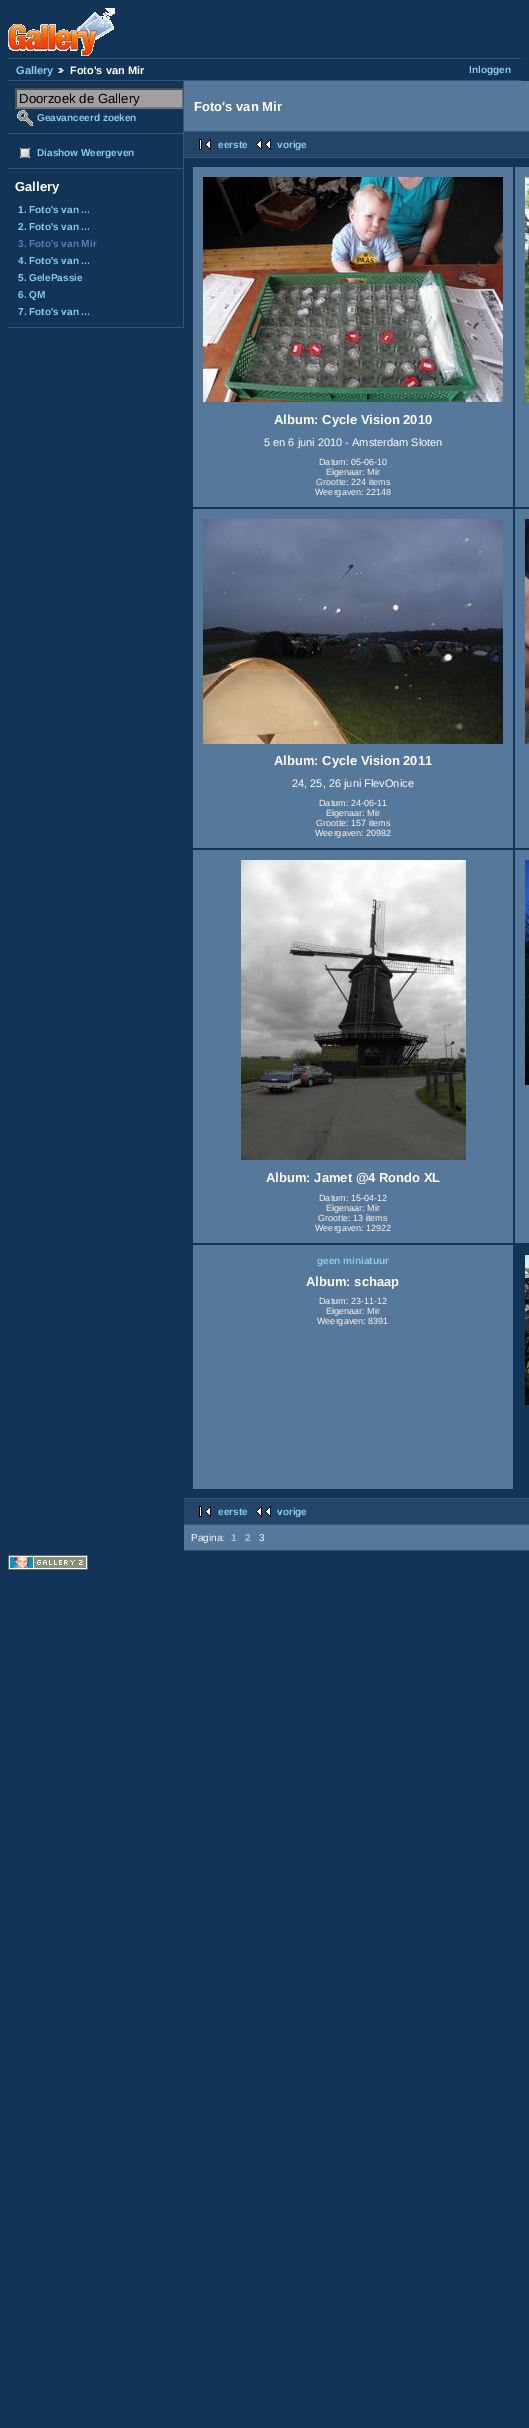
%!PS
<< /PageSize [529 2428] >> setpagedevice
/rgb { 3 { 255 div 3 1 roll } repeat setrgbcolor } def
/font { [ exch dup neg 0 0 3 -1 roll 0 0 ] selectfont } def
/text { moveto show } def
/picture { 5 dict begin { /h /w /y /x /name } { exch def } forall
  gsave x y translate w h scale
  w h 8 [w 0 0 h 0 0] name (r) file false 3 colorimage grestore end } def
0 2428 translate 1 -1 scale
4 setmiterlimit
18 52 86 rgb
0 0 529 2428 rectfill
(img_01.rgb) 8 8 107 48 picture
52 86 120 rgb
8 58 513 1 rectfill
8 80 513 1 rectfill
(img_02.rgb) 58 68 6 5 picture
183 81 1 247 rectfill
8 133 175 1 rectfill
160 160 160 rgb
15 88 168 21 rectfill
79 79 79 rgb
15 88 moveto 169 0 rlineto -2 2 rlineto -165 0 rlineto closepath fill
gsave
8 81 175 247 rectclip
118 118 118 rgb
184 88 moveto 0 21 rlineto -2 -2 rlineto 0 -17 rlineto closepath fill
grestore
118 118 118 rgb
184 109 moveto -169 0 rlineto 2 -2 rlineto 165 0 rlineto closepath fill
79 79 79 rgb
15 109 moveto 0 -21 rlineto 2 2 rlineto 0 17 rlineto closepath fill
(img_03.rgb) 17 110 16 16 picture
52 86 120 rgb
8 168 175 1 rectfill
(img_04.rgb) 20 148 10 10 picture
8 327 175 1 rectfill
86 120 154 rgb
184 81 345 50 rectfill
52 86 120 rgb
184 131 345 1 rectfill
35 69 103 rgb
184 132 345 25 rectfill
52 86 120 rgb
184 157 345 1 rectfill
(img_05.rgb) 199 139 12 11 picture
(img_06.rgb) 256 139 15 11 picture
184 1498 345 1 rectfill
86 120 154 rgb
193 167 320 340 rectfill
(img_07.rgb) 203 177 300 225 picture
515 167 14 340 rectfill
(img_08.rgb) 525 177 4 225 picture
193 509 320 339 rectfill
(img_09.rgb) 203 519 300 225 picture
515 509 14 339 rectfill
(img_10.rgb) 525 519 4 225 picture
193 850 320 393 rectfill
(img_11.rgb) 241 860 225 300 picture
515 850 14 393 rectfill
(img_12.rgb) 525 860 4 225 picture
193 1245 320 244 rectfill
(img_13.rgb) 525 1255 4 150 picture
35 69 103 rgb
184 1499 345 25 rectfill
52 86 120 rgb
184 1524 345 1 rectfill
(img_05.rgb) 199 1506 12 11 picture
(img_06.rgb) 256 1506 15 11 picture
86 120 154 rgb
184 1525 345 25 rectfill
52 86 120 rgb
184 1550 345 1 rectfill
(img_14.rgb) 8 1555 80 15 picture
/LiberationSans-Bold 11 font
135 206 235 rgb
(Gallery) 16 74 text
255 255 255 rgb
(Foto's van Mir) 70 74 text
/LiberationSans-Bold 10 font
135 206 235 rgb
(Inloggen) 469 73 text
/LiberationSans-Regular 13.25 font
0 0 0 rgb
(Doorzoek de Gallery) 19 103 text
/LiberationSans-Bold 10 font
135 206 235 rgb
(Geavanceerd zoeken) 37 121 text
(Diashow Weergeven) 37 156 text
/LiberationSans-Bold 13 font
255 255 255 rgb
(Gallery) 15 191 text
/LiberationSans-Bold 10 font
135 206 235 rgb
(1. Foto's van ...) 18 213 text
(2. Foto's van ...) 18 230 text
102 119 187 rgb
(3. Foto's van Mir) 18 247 text
135 206 235 rgb
(4. Foto's van ...) 18 264 text
(5. GelePassie) 18 281 text
(6. QM) 18 298 text
(7. Foto's van ...) 18 315 text
/LiberationSans-Bold 13 font
255 255 255 rgb
(Foto's van Mir) 194 111 text
/LiberationSans-Bold 10 font
135 206 235 rgb
(eerste) 218 148 text
(vorige) 277 148 text
/LiberationSans-Bold 13 font
255 255 255 rgb
(Album: Cycle Vision 2010) 274 424 text
/LiberationSans-Regular 11 font
(5 en 6 juni 2010 - Amsterdam Sloten) 264 446 text
/LiberationSans-Regular 9 font
255 245 238 rgb
(Datum: 05-06-10) 319 465 text
(Eigenaar: Mir) 326 475 text
(Grootte: 224 items) 316 485 text
(Weergaven: 22148) 315 495 text
/LiberationSans-Bold 13 font
255 255 255 rgb
(Album: Cycle Vision 2011) 274 765 text
/LiberationSans-Regular 11 font
(24, 25, 26 juni FlevOnice) 292 787 text
/LiberationSans-Regular 9 font
255 245 238 rgb
(Datum: 24-06-11) 319 806 text
(Eigenaar: Mir) 326 816 text
(Grootte: 157 items) 316 826 text
(Weergaven: 20982) 315 836 text
/LiberationSans-Bold 13 font
255 255 255 rgb
(Album: Jamet @4 Rondo XL) 266 1182 text
/LiberationSans-Regular 9 font
255 245 238 rgb
(Datum: 15-04-12) 319 1201 text
(Eigenaar: Mir) 326 1211 text
(Grootte: 13 items) 318 1221 text
(Weergaven: 12922) 315 1231 text
/LiberationSans-Bold 10 font
135 206 235 rgb
(geen miniatuur) 317 1264 text
/LiberationSans-Bold 13 font
255 255 255 rgb
(Album: schaap) 306 1286 text
/LiberationSans-Regular 9 font
255 245 238 rgb
(Datum: 23-11-12) 319 1304 text
(Eigenaar: Mir) 326 1314 text
(Weergaven: 8391) 317 1324 text
/LiberationSans-Bold 10 font
135 206 235 rgb
(eerste) 218 1515 text
(vorige) 277 1515 text
/LiberationSans-Regular 10 font
255 255 255 rgb
(Pagina:) 191 1541 text
/LiberationSans-Bold 10 font
135 206 235 rgb
(1) 231 1541 text
(2) 245 1541 text
/LiberationSans-Regular 10 font
255 255 255 rgb
(3) 259 1541 text
showpage
